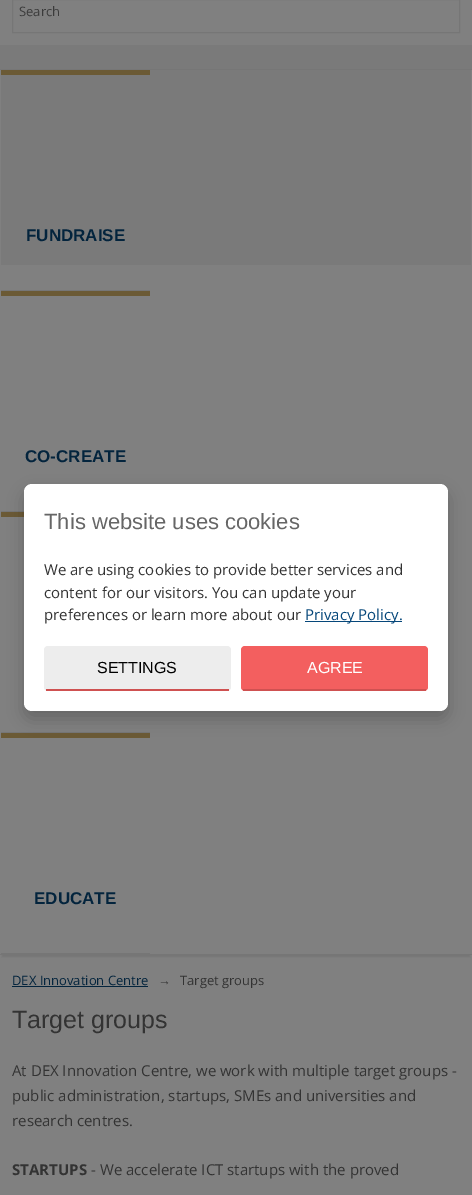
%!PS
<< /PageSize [472 1195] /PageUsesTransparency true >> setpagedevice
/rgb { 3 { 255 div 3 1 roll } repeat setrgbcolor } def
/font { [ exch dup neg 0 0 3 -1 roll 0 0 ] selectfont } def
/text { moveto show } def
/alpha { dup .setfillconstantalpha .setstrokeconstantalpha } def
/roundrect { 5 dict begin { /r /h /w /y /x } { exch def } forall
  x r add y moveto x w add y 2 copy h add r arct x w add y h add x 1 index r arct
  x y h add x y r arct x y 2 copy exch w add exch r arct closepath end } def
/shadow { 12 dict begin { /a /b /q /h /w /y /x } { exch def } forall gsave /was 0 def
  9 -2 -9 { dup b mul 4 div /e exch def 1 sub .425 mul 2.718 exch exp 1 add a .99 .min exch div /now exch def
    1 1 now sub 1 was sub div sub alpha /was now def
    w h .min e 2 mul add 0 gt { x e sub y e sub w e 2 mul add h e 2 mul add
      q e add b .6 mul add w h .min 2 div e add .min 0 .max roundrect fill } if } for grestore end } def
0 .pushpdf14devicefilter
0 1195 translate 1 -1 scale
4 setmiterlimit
128 128 128 rgb
0 0 472 1195 rectfill
gsave
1 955 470 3 rectclip
0 0 0 rgb
2 -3 468 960 0 1 0.1 shadow
grestore
118 118 118 rgb
0 954 472 1 rectfill
12.5 -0.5 447 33 rectstroke
122 122 122 rgb
0 45 472 220 rectfill
118 118 118 rgb
0 69 472 1 rectfill
128 128 128 rgb
471 70 1 195 rectfill
118 118 118 rgb
0 290 150 1 rectfill
128 128 128 rgb
0 70 1 221 rectfill
107 90 53 rgb
1 70 149 5 rectfill
118 118 118 rgb
0 511 24 1 rectfill
128 128 128 rgb
0 511 1 1 rectfill
107 90 53 rgb
1 291 149 5 rectfill
118 118 118 rgb
0 732 150 1 rectfill
128 128 128 rgb
0 732 1 1 rectfill
107 90 53 rgb
1 512 23 5 rectfill
118 118 118 rgb
0 953 150 1 rectfill
128 128 128 rgb
0 953 1 1 rectfill
107 90 53 rgb
1 733 149 5 rectfill
3 36 61 rgb
12 986 136 1 rectfill
0 0 0 rgb
24 492 424 227 8 8 0.2 shadow
255 255 255 rgb
24 484 424 227 8 roundrect fill
6 71 122 rgb
305 621 97 1 rectfill
237 237 237 rgb
44 646 187 45 4 roundrect fill
207 81 81 rgb
46 689 183 2 rectfill
243 95 95 rgb
241 646 187 45 4 roundrect fill
207 81 81 rgb
243 689 183 2 rectfill
/OpenSans-Regular 13 font
59 59 59 rgb
(Search) 19 16 text
/LiberationSans-Bold 17 font
3 36 61 rgb
(FUNDRAISE) 26 241 text
(CO-CREATE) 25 462 text
(EDUCATE) 34 904 text
/OpenSans-Regular 13 font
(DEX Innovation Centre) 12 985 text
/LiberationSans-Regular 13 font
51 51 51 rgb
(→) 158 985 text
/OpenSans-Regular 13 font
(Target groups) 180 985 text
/LiberationSans-Regular 25 font
(Target groups) 12 1028 text
/OpenSans-Regular 15 font
(At DEX Innovation Centre, we work with multiple target groups -) 12 1076 text
(public administration, startups, SMEs and universities and) 12 1101 text
(research centres.) 12 1126 text
/OpenSans-Bold 15 font
(STARTUPS) 12 1175 text
/OpenSans-Regular 15 font
(- We accelerate ICT startups with the proved) 91 1175 text
/LiberationSans-Regular 22 font
102 102 102 rgb
(This website uses cookies) 44 529 text
/OpenSans-Regular 15 font
51 51 51 rgb
(We are using cookies to provide better services and) 44 575 text
(content for our visitors. You can update your) 44 598 text
(preferences or learn more about our) 44 620 text
6 71 122 rgb
(Privacy Policy.) 305 620 text
/LiberationSans-Regular 16 font
0 0 0 rgb
(SETTINGS) 97 673 text
255 255 255 rgb
(AGREE) 307 673 text
.poppdf14devicefilter showpage
